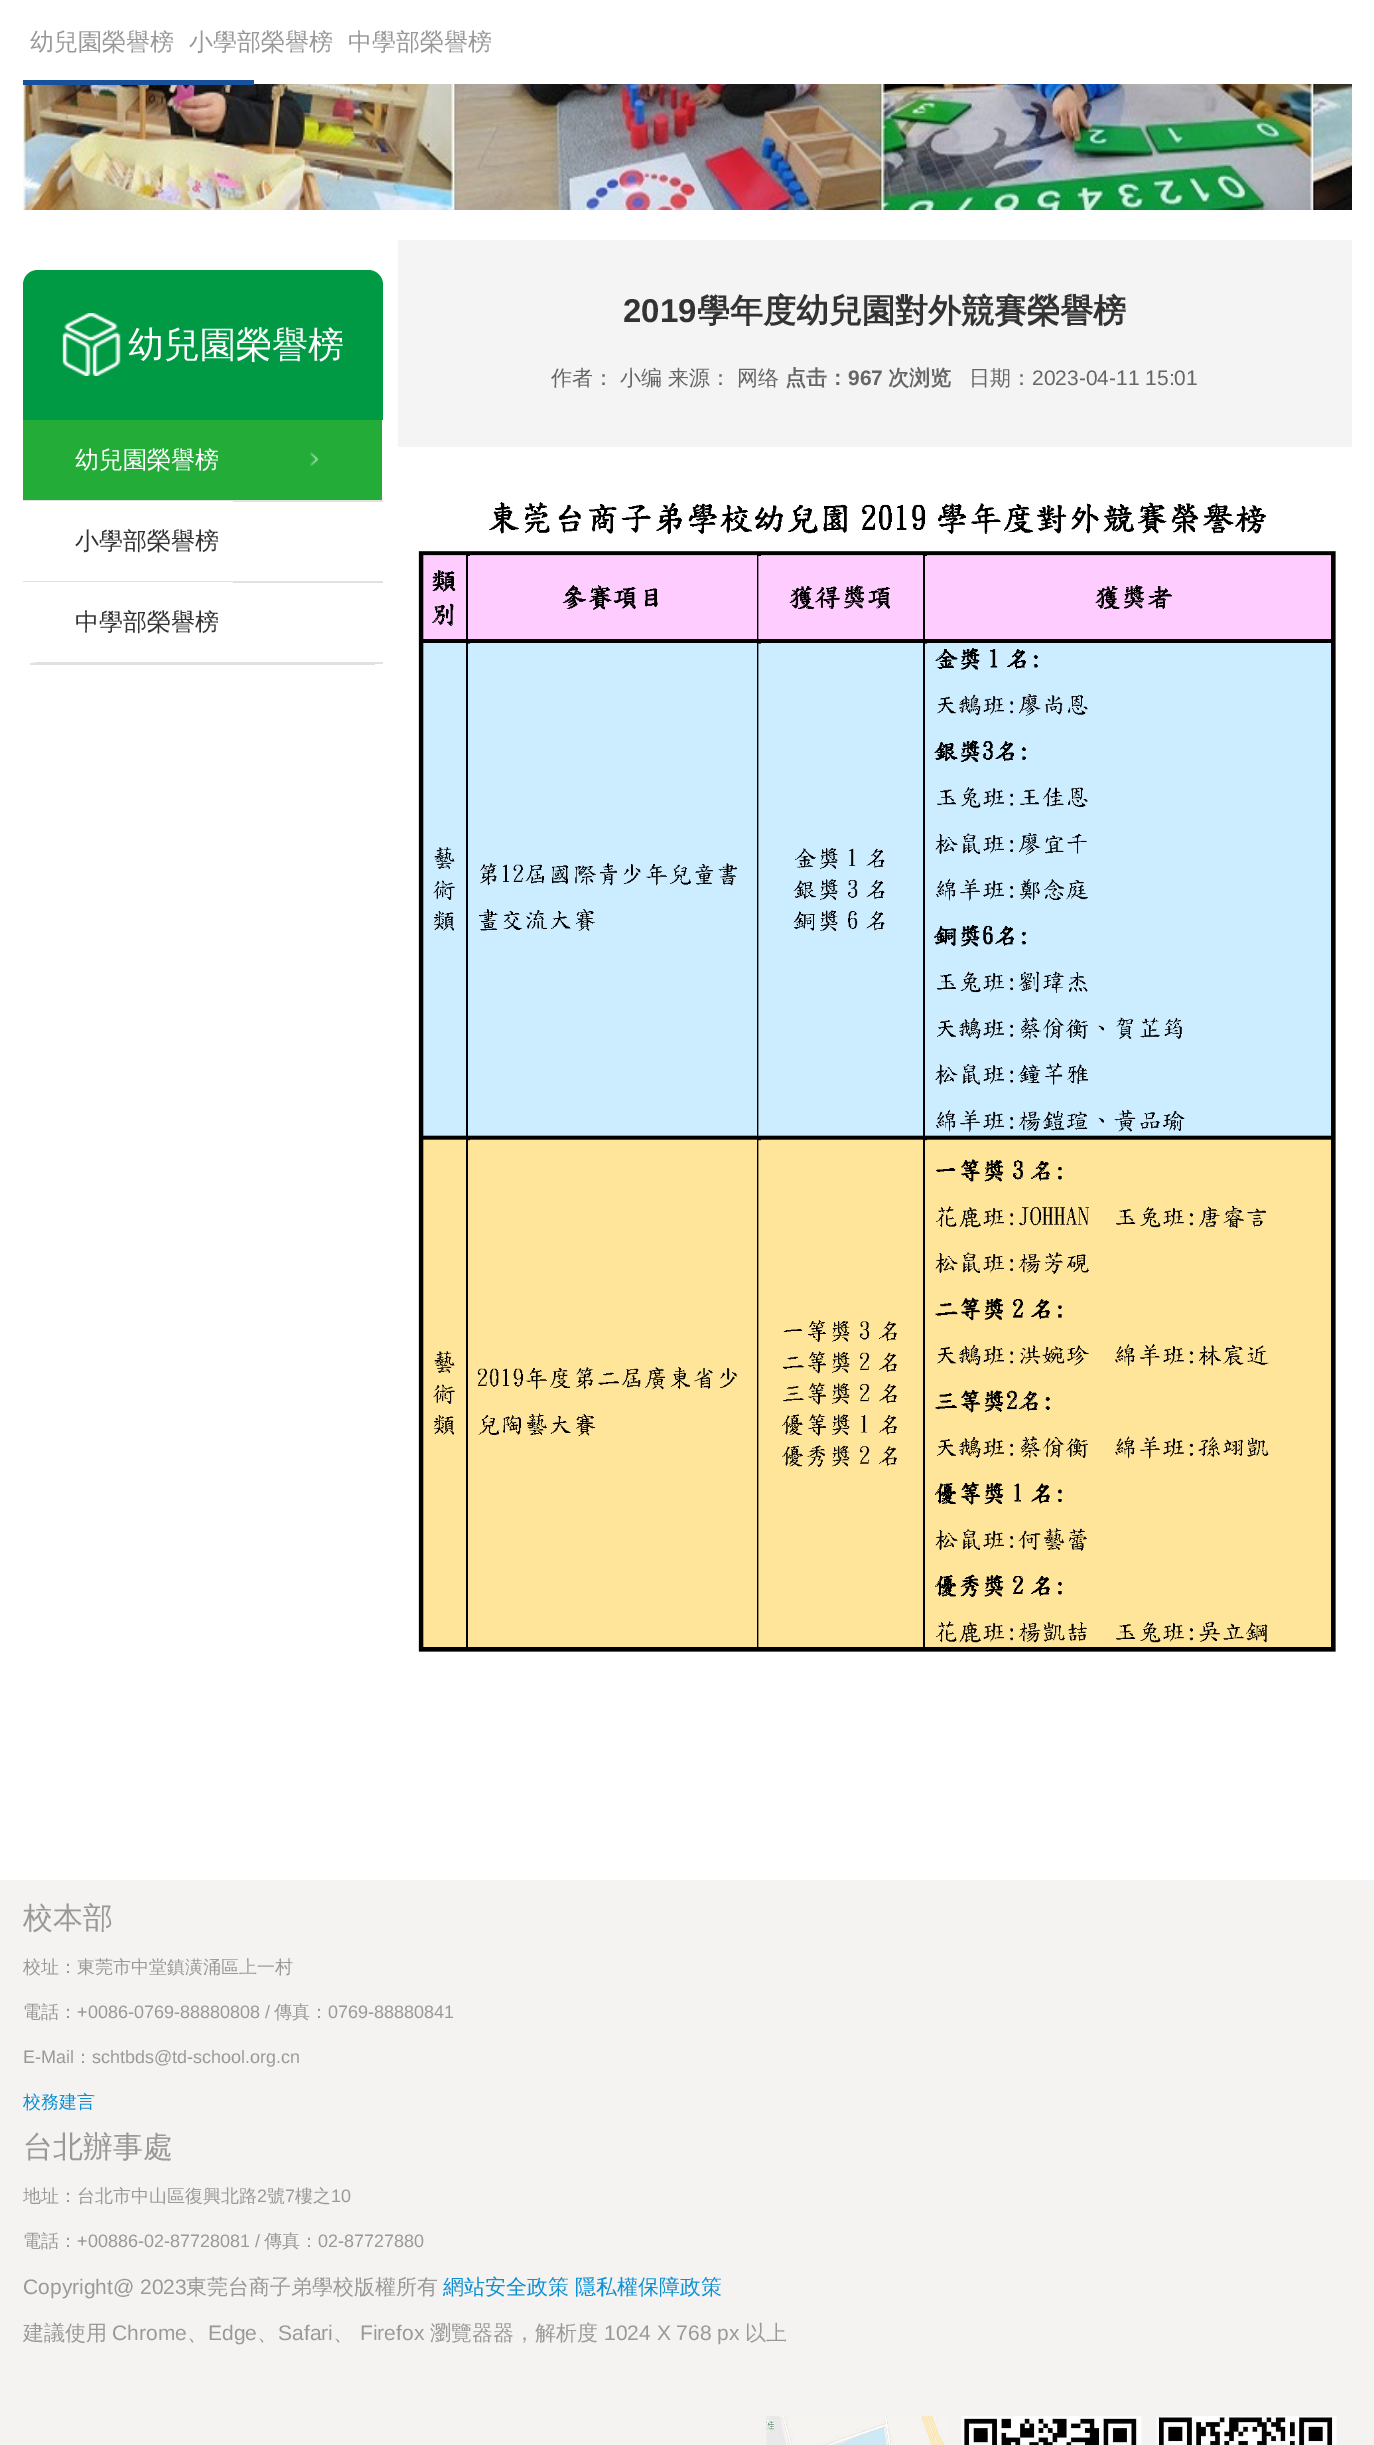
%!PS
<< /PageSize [1374 2445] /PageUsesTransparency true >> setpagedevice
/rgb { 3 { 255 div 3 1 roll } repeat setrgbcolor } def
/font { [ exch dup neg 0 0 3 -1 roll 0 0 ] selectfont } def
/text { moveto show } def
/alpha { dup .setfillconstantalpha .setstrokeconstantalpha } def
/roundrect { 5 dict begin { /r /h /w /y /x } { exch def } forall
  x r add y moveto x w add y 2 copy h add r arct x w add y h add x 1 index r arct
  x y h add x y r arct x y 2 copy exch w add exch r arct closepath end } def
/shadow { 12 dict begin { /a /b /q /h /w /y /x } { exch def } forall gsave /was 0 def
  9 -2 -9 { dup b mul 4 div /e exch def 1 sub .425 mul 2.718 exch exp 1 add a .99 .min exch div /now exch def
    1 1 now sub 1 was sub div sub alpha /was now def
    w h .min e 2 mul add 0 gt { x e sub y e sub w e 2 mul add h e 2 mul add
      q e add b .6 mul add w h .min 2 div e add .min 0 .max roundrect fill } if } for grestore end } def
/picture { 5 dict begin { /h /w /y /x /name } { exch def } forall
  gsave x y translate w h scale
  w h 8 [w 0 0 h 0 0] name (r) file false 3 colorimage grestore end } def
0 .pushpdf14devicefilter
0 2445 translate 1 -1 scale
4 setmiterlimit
255 255 255 rgb
0 0 1374 2445 rectfill
gsave
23 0 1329 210 rectclip
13 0 moveto 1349 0 rlineto 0 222 rlineto -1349 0 rlineto closepath 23 -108 moveto 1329 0 rlineto 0 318 rlineto -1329 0 rlineto closepath eoclip newpath
0 0 0 rgb
23 -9 1329 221 0 3 0.2 shadow
grestore
(img_02.rgb) 23 207 821 3 picture
(img_01.rgb) 23 84 1329 126 picture
1351 0 1 84 rectfill
23 80 157 rgb
23 80 231 5 rectfill
0 154 68 rgb
38 270 moveto 330 0 rlineto 8.5 0 15 6.5 15 15 rcurveto 0 135 rlineto -360 0 rlineto 0 -135 rlineto 0 -8.5 6.5 -15 15 -15 rcurveto closepath fill
(img_03.rgb) 62 313 59 63 picture
227 224 224 rgb
30 663 345 2 rectfill
35 172 56 rgb
23 420 359 80 rectfill
(img_04.rgb) 310 452 9 14 picture
227 224 224 rgb
23 500 210 1 rectfill
233 500 150 2 rectfill
23 581 210 1 rectfill
233 581 150 2 rectfill
373 662 moveto -5 1 rlineto -330 0 rlineto -6 -1 rlineto closepath fill
368 662 15 2 rectfill
244 244 244 rgb
398 240 954 207 rectfill
(img_05.rgb) 418 502 918 1150 picture
244 243 241 rgb
0 1880 1374 565 rectfill
(img_06.rgb) 766 2416 181 29 picture
(img_07.rgb) 961 2416 181 29 picture
(img_08.rgb) 1156 2416 181 29 picture
/WenQuanYiZenHei-Medium 24 font
153 153 153 rgb
(幼兒園榮譽榜) 30 50 text
(小學部榮譽榜) 189 50 text
(中學部榮譽榜) 348 50 text
/WenQuanYiZenHei-Medium 36 font
255 255 255 rgb
(幼兒園榮譽榜) 128 357 text
/WenQuanYiZenHei-Medium 24 font
(幼兒園榮譽榜) 75 468 text
51 51 51 rgb
(小學部榮譽榜) 75 549 text
(中學部榮譽榜) 75 630 text
/LiberationSans-Bold 33 font
(2019) 623 322 text
/WenQuanYiZenHei-Bold 33 font
(學年度幼兒園對外競賽榮譽榜) 697 322 text
/WenQuanYiZenHei-Medium 21 font
102 102 102 rgb
(作者： 小编) 551 385 text
(来源：) 668 385 text
(网络) 737 385 text
/WenQuanYiZenHei-Bold 21 font
(点击：) 785 385 text
/LiberationSans-Bold 21 font
(967) 848 385 text
/WenQuanYiZenHei-Bold 21 font
(次浏览) 888 385 text
/WenQuanYiZenHei-Medium 21 font
(日期：) 969 385 text
/LiberationSans-Regular 21 font
(2023-04-11 15:01) 1032 385 text
/WenQuanYiZenHei-Medium 30 font
153 153 153 rgb
(校本部) 23 1928 text
/WenQuanYiZenHei-Medium 18 font
(校址：東莞市中堂鎮潢涌區上一村) 23 1973 text
(電話：) 23 2018 text
/LiberationSans-Regular 18 font
(+0086-0769-88880808 /) 77 2018 text
/WenQuanYiZenHei-Medium 18 font
(傳真：) 274 2018 text
/LiberationSans-Regular 18 font
(0769-88880841) 328 2018 text
(E-Mail) 23 2063 text
/WenQuanYiZenHei-Medium 18 font
(：) 74 2063 text
/LiberationSans-Regular 18 font
(schtbds@td-school.org.cn) 92 2063 text
/WenQuanYiZenHei-Medium 18 font
14 144 210 rgb
(校務建言) 23 2108 text
/WenQuanYiZenHei-Medium 30 font
153 153 153 rgb
(台北辦事處) 23 2157 text
/WenQuanYiZenHei-Medium 18 font
(地址：台北市中山區復興北路) 23 2202 text
/LiberationSans-Regular 18 font
(2) 257 2202 text
/WenQuanYiZenHei-Medium 18 font
(號) 267 2202 text
/LiberationSans-Regular 18 font
(7) 285 2202 text
/WenQuanYiZenHei-Medium 18 font
(樓之) 295 2202 text
/LiberationSans-Regular 18 font
(10) 331 2202 text
/WenQuanYiZenHei-Medium 18 font
(電話：) 23 2247 text
/LiberationSans-Regular 18 font
(+00886-02-87728081 /) 77 2247 text
/WenQuanYiZenHei-Medium 18 font
(傳真：) 264 2247 text
/LiberationSans-Regular 18 font
(02-87727880) 318 2247 text
/LiberationSans-Regular 21 font
(Copyright@ 2023) 23 2294 text
/WenQuanYiZenHei-Medium 21 font
(東莞台商子弟學校版權所有) 186 2294 text
14 144 210 rgb
(網站安全政策) 443 2294 text
(隱私權保障政策) 575 2294 text
153 153 153 rgb
(建議使用) 23 2340 text
/LiberationSans-Regular 21 font
(Chrome) 112 2340 text
/WenQuanYiZenHei-Medium 21 font
(、) 187 2340 text
/LiberationSans-Regular 21 font
(Edge) 208 2340 text
/WenQuanYiZenHei-Medium 21 font
(、) 257 2340 text
/LiberationSans-Regular 21 font
(Safari) 278 2340 text
/WenQuanYiZenHei-Medium 21 font
(、) 333 2340 text
/LiberationSans-Regular 21 font
(Firefox) 360 2340 text
/WenQuanYiZenHei-Medium 21 font
(瀏覽器器，解析度) 430 2340 text
/LiberationSans-Regular 21 font
(1024 X 768 px) 604 2340 text
/WenQuanYiZenHei-Medium 21 font
(以上) 745 2340 text
.poppdf14devicefilter showpage
